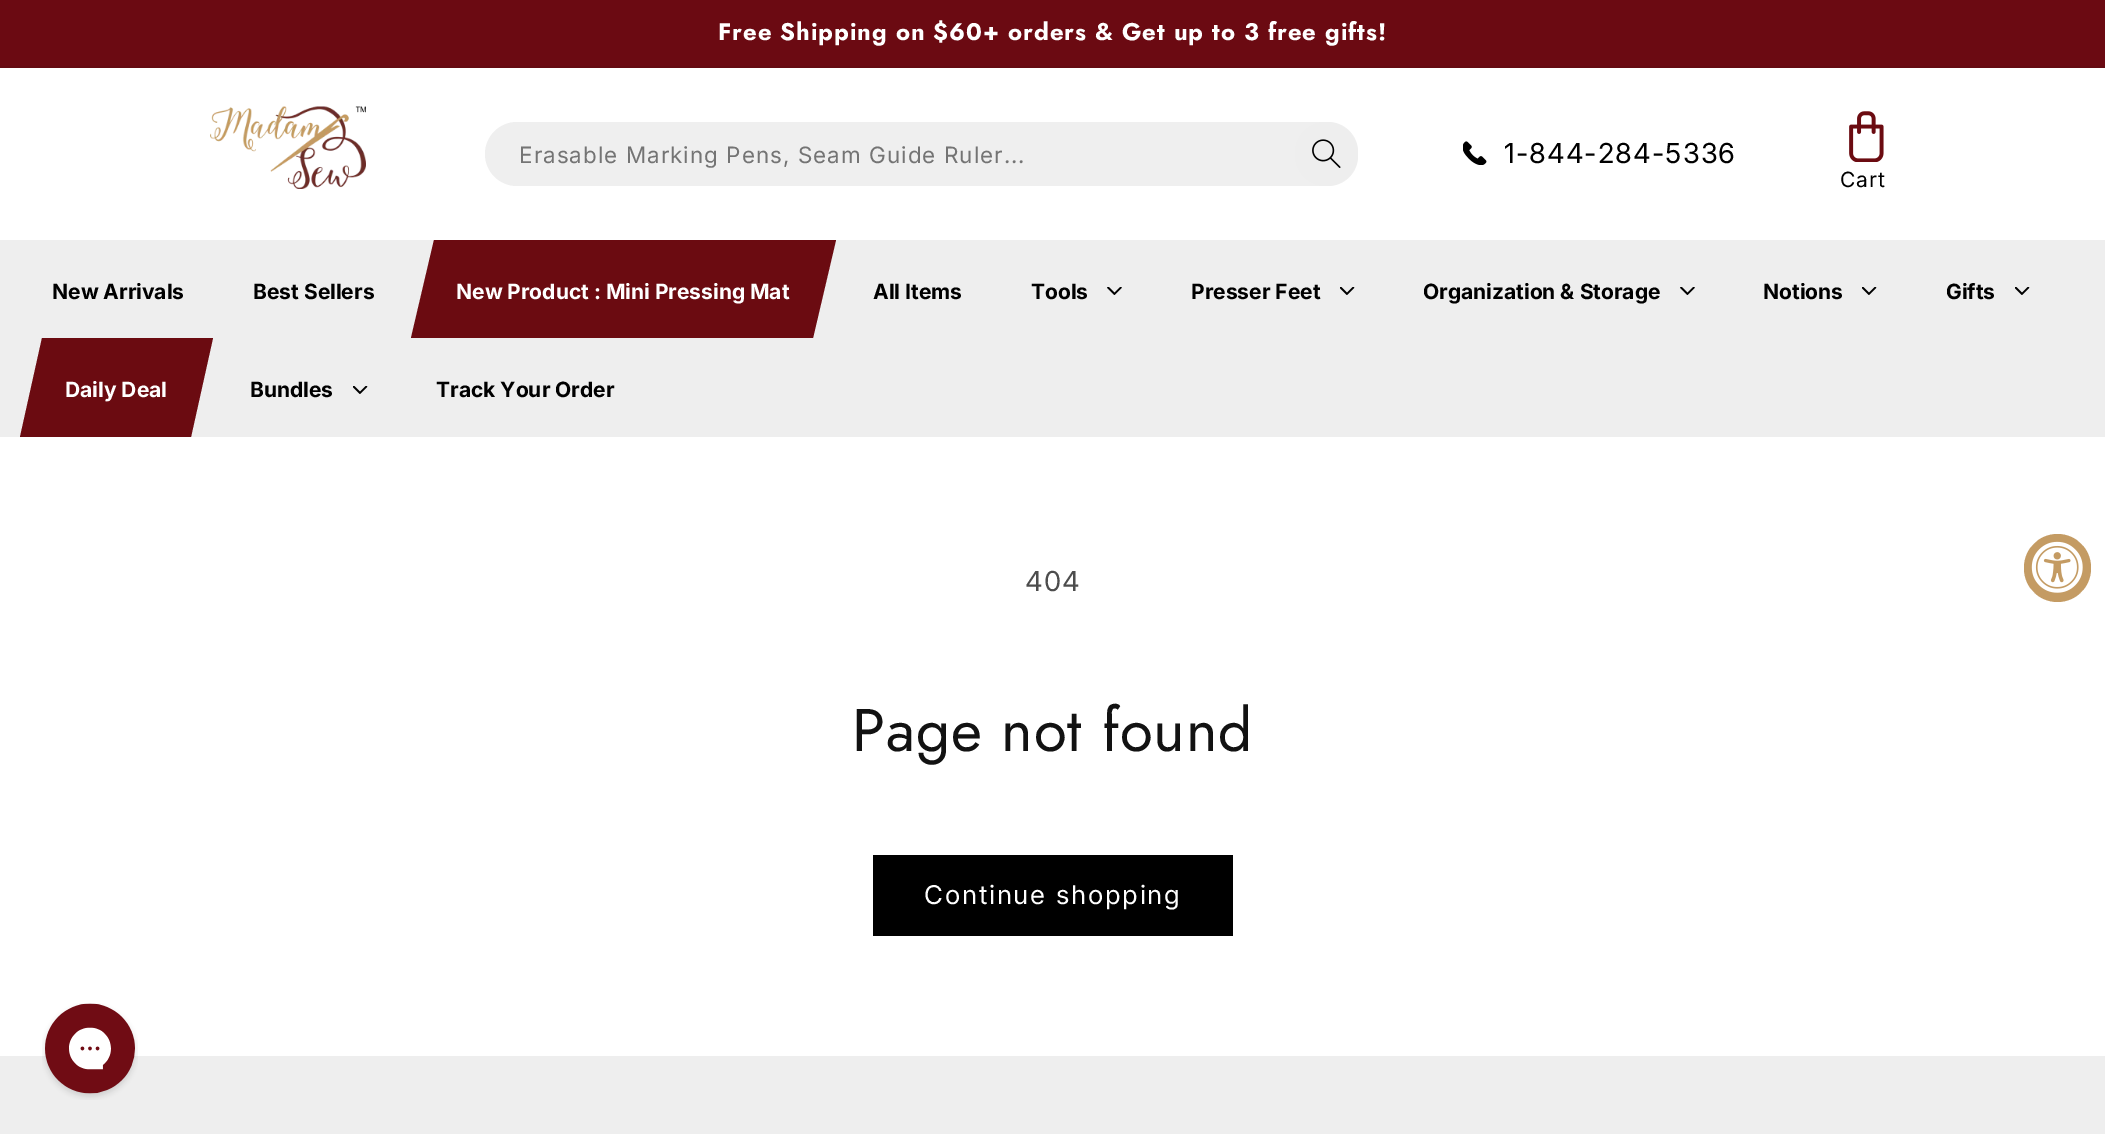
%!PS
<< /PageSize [2105 1134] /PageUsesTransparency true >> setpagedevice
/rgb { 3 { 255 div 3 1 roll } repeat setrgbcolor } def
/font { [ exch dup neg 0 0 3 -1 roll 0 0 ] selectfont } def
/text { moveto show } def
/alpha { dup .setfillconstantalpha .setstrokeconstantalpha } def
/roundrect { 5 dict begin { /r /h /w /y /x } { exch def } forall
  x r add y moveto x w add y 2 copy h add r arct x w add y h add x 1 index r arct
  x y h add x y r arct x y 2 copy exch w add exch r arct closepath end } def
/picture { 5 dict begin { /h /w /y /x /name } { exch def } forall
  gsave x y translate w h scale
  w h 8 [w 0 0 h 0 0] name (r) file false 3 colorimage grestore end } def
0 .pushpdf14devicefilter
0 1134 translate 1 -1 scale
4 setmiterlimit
255 255 255 rgb
0 0 2105 1134 rectfill
107 10 18 rgb
0 0 2105 66 rectfill
100 11 18 rgb
0 66 2105 2 rectfill
(img_01.rgb) 210 106 156 83 picture
239 239 239 rgb
485 122 873 64 32 roundrect fill
0.93 alpha
238 238 238 rgb
1295 122 63 64 30 roundrect fill
1 alpha
(img_02.rgb) 1312 139 29 29 picture
(img_03.rgb) 1463 141 24 24 picture
(img_04.rgb) 1849 111 35 51 picture
0 240 2105 197 rectfill
107 11 17 rgb
434 240 moveto 402 0 rlineto -23 98 rlineto -402 0 rlineto closepath fill
(img_05.rgb) 1107 287 15 8 picture
(img_06.rgb) 1340 287 15 8 picture
(img_05.rgb) 1680 287 15 8 picture
(img_06.rgb) 1862 287 15 8 picture
(img_06.rgb) 2015 287 15 8 picture
42 338 moveto 171 0 rlineto -22 99 rlineto -171 0 rlineto closepath fill
(img_06.rgb) 353 386 15 8 picture
0 0 0 rgb
873 855 360 81 rectfill
196 155 99 rgb
2024 534 67 68 33.5 roundrect fill
(img_07.rgb) 2031 541 52 52 picture
238 238 238 rgb
0 1056 2105 78 rectfill
(img_08.rgb) 42 1003 96 97 picture
/Jost-Bold 24 font
255 255 255 rgb
718 40 moveto 0.9 0 (Free Shipping on $60+ orders & Get up to 3 free gifts!) ashow
/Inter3-Regular 22.5 font
116 116 116 rgb
519 163 moveto 1.05 0 (Erasable Marking Pens, Seam Guide Ruler...) ashow
/Inter-Regular 27.5 font
0 0 0 rgb
1504 163 moveto 1.05 0 (1-844-284-5336) ashow
/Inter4-Regular 21 font
1840 187 moveto 1.05 0 (Cart) ashow
/Inter-Bold 21 font
(New Arrivals) 52 299 text
(Best Sellers) 253 299 text
255 255 255 rgb
(New Product : Mini Pressing Mat) 456 299 text
0 0 0 rgb
(All Items) 873 299 text
(Tools) 1031 299 text
(Presser Feet) 1191 299 text
(Organization & Storage) 1423 299 text
(Notions) 1763 299 text
(Gifts) 1946 299 text
255 255 255 rgb
(Daily Deal) 65 397 text
0 0 0 rgb
(Bundles) 250 397 text
(Track Your Order) 436 397 text
/Inter-Regular 27.5 font
77 77 77 rgb
1025 591 moveto 1.05 0 (404) ashow
/Jost-Regular 60 font
18 18 18 rgb
852 751 moveto 0.9 0 (Page not found) ashow
/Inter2-Regular 25.9 font
255 255 255 rgb
924 904 moveto 1.75 0 (Continue shopping) ashow
.poppdf14devicefilter showpage
